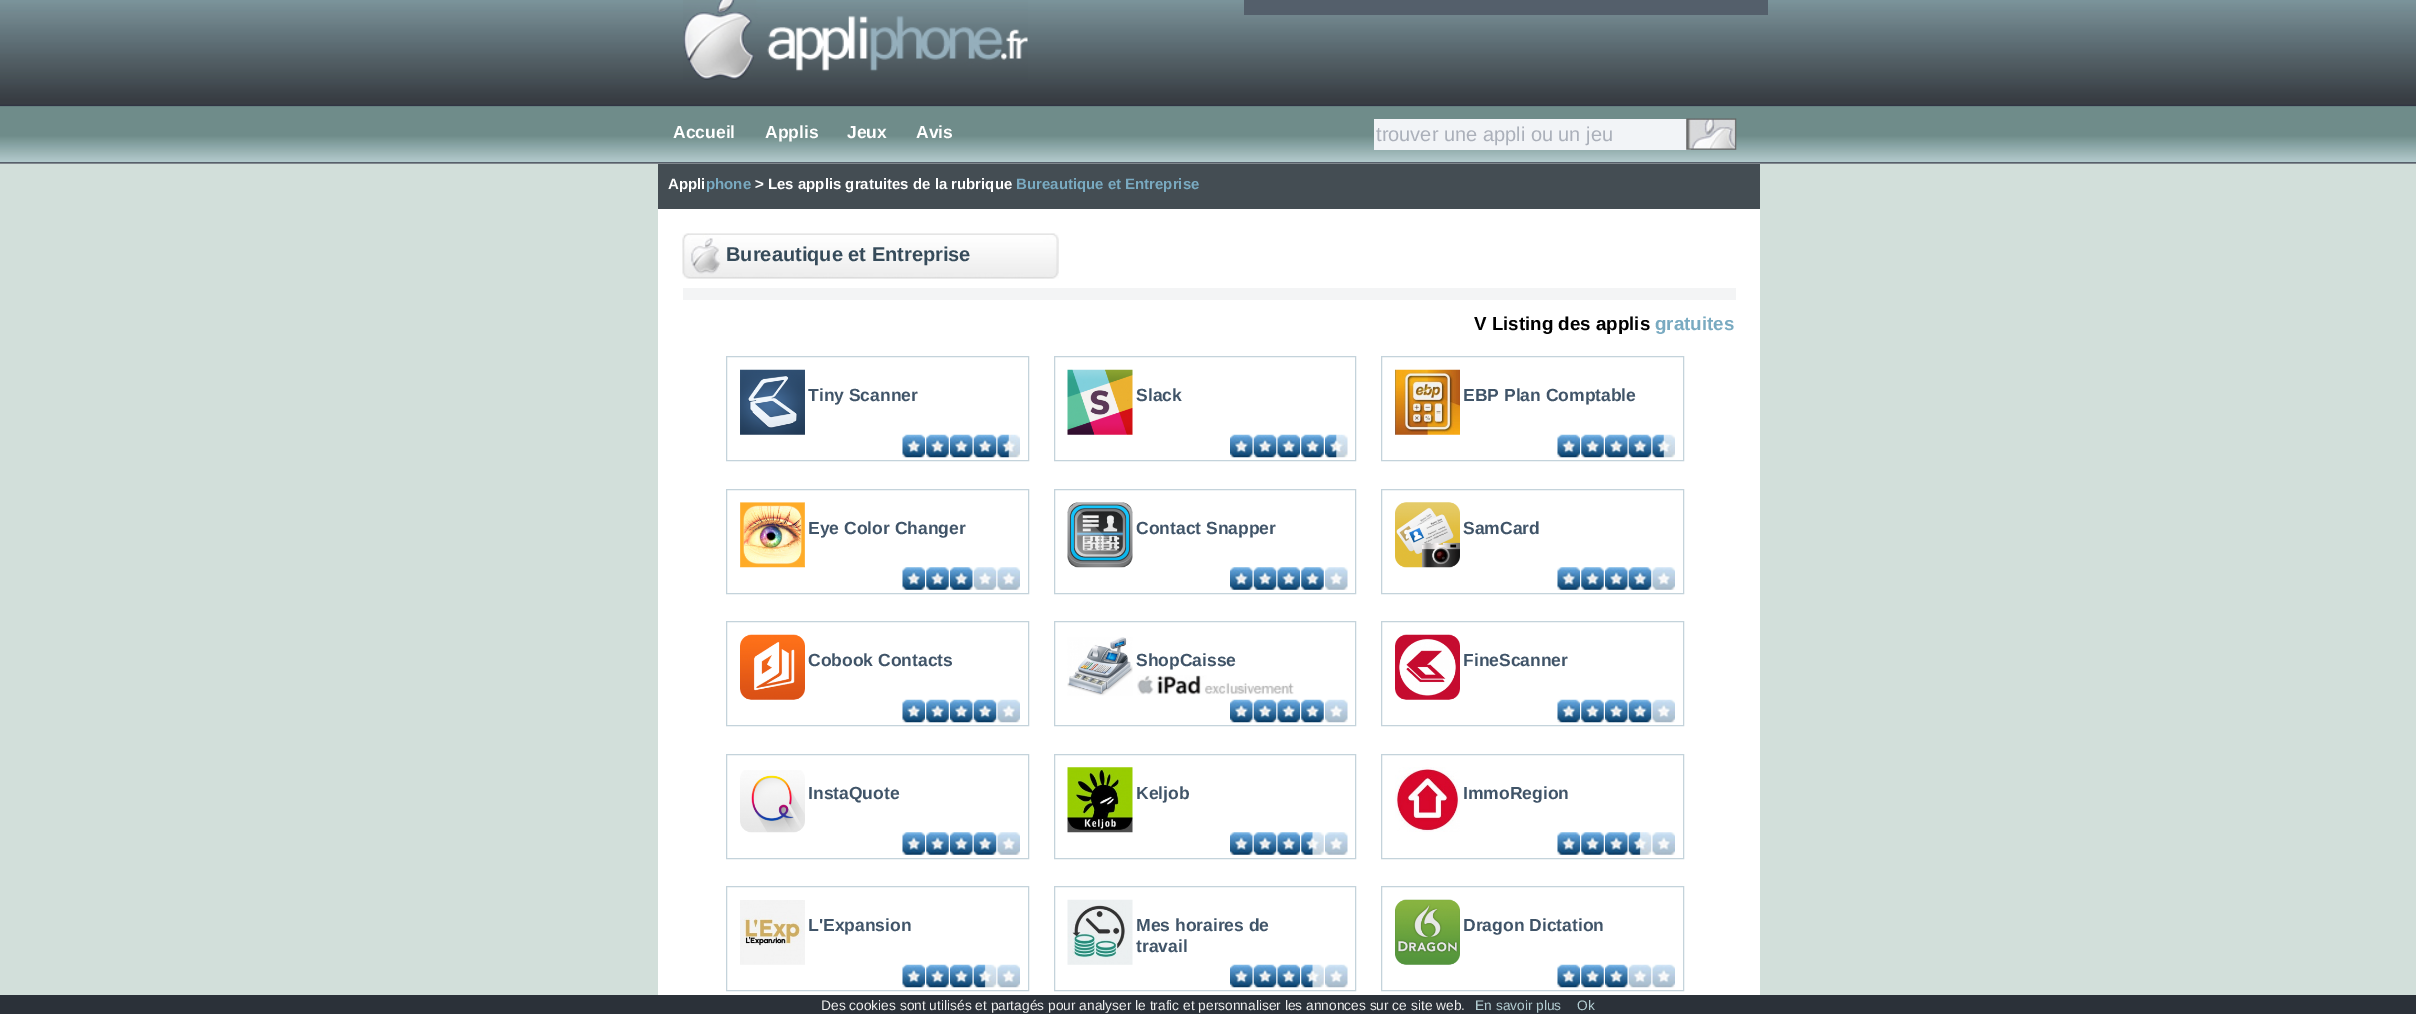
%!PS
<< /PageSize [2416 1014] >> setpagedevice
/rgb { 3 { 255 div 3 1 roll } repeat setrgbcolor } def
/font { [ exch dup neg 0 0 3 -1 roll 0 0 ] selectfont } def
/text { moveto show } def
/picture { 5 dict begin { /h /w /y /x /name } { exch def } forall
  gsave x y translate w h scale
  w h 8 [w 0 0 h 0 0] name (r) file false 3 colorimage grestore end } def
0 1014 translate 1 -1 scale
4 setmiterlimit
210 223 218 rgb
0 0 2416 1014 rectfill
(img_01.rgb) 0 0 2416 164 picture
(img_02.rgb) 683 0 345 80 picture
84 95 107 rgb
1244 0 524 15 rectfill
242 244 247 rgb
1374 119 317 31 rectfill
(img_03.rgb) 1686 118 51 32 picture
255 255 255 rgb
658 209 1102 786 rectfill
68 77 83 rgb
658 164 1102 45 rectfill
(img_04.rgb) 682 233 377 46 picture
243 244 245 rgb
683 288 1053 12 rectfill
196 211 219 rgb
726.5 356.5 302 104 rectstroke
(img_05.rgb) 740 369 65 66 picture
(img_06.rgb) 902 434 23 24 picture
(img_07.rgb) 926 434 23 24 picture
(img_08.rgb) 950 434 23 24 picture
(img_09.rgb) 973 434 24 24 picture
(img_10.rgb) 997 434 23 24 picture
1054.5 356.5 301 104 rectstroke
(img_11.rgb) 1067 369 66 66 picture
(img_12.rgb) 1230 434 23 24 picture
(img_13.rgb) 1253 434 24 24 picture
(img_06.rgb) 1277 434 23 24 picture
(img_07.rgb) 1301 434 23 24 picture
(img_14.rgb) 1325 434 23 24 picture
1381.5 356.5 302 104 rectstroke
(img_15.rgb) 1395 369 65 66 picture
(img_16.rgb) 1557 434 23 24 picture
(img_07.rgb) 1581 434 23 24 picture
(img_12.rgb) 1605 434 23 24 picture
(img_09.rgb) 1628 434 24 24 picture
(img_10.rgb) 1652 434 23 24 picture
726.5 489.5 302 104 rectstroke
(img_17.rgb) 740 502 65 66 picture
(img_18.rgb) 902 567 23 23 picture
(img_19.rgb) 926 567 23 23 picture
(img_20.rgb) 950 567 23 23 picture
(img_21.rgb) 973 567 24 23 picture
(img_22.rgb) 997 567 23 23 picture
1054.5 489.5 301 104 rectstroke
(img_23.rgb) 1067 502 66 66 picture
(img_24.rgb) 1230 567 23 23 picture
(img_25.rgb) 1253 567 24 23 picture
(img_18.rgb) 1277 567 23 23 picture
(img_19.rgb) 1301 567 23 23 picture
(img_26.rgb) 1325 567 23 23 picture
1381.5 489.5 302 104 rectstroke
(img_27.rgb) 1395 502 65 66 picture
(img_28.rgb) 1557 567 23 23 picture
(img_19.rgb) 1581 567 23 23 picture
(img_24.rgb) 1605 567 23 23 picture
(img_29.rgb) 1628 567 24 23 picture
(img_22.rgb) 1652 567 23 23 picture
726.5 621.5 302 104 rectstroke
(img_30.rgb) 740 634 65 66 picture
(img_06.rgb) 902 699 23 24 picture
(img_07.rgb) 926 699 23 24 picture
(img_08.rgb) 950 699 23 24 picture
(img_09.rgb) 973 699 24 24 picture
(img_31.rgb) 997 699 23 24 picture
1054.5 621.5 301 104 rectstroke
(img_32.rgb) 1067 637 66 59 picture
(img_33.rgb) 1137 675 157 20 picture
(img_12.rgb) 1230 699 23 24 picture
(img_13.rgb) 1253 699 24 24 picture
(img_06.rgb) 1277 699 23 24 picture
(img_07.rgb) 1301 699 23 24 picture
(img_34.rgb) 1325 699 23 24 picture
1381.5 621.5 302 104 rectstroke
(img_35.rgb) 1395 634 65 66 picture
(img_16.rgb) 1557 699 23 24 picture
(img_07.rgb) 1581 699 23 24 picture
(img_12.rgb) 1605 699 23 24 picture
(img_09.rgb) 1628 699 24 24 picture
(img_31.rgb) 1652 699 23 24 picture
726.5 754.5 302 104 rectstroke
(img_36.rgb) 740 770 65 63 picture
(img_18.rgb) 902 832 23 23 picture
(img_19.rgb) 926 832 23 23 picture
(img_20.rgb) 950 832 23 23 picture
(img_29.rgb) 973 832 24 23 picture
(img_22.rgb) 997 832 23 23 picture
1054.5 754.5 301 104 rectstroke
(img_37.rgb) 1067 767 66 66 picture
(img_24.rgb) 1230 832 23 23 picture
(img_25.rgb) 1253 832 24 23 picture
(img_18.rgb) 1277 832 23 23 picture
(img_38.rgb) 1301 832 23 23 picture
(img_26.rgb) 1325 832 23 23 picture
1381.5 754.5 302 104 rectstroke
(img_39.rgb) 1395 767 65 65 picture
(img_28.rgb) 1557 832 23 23 picture
(img_19.rgb) 1581 832 23 23 picture
(img_24.rgb) 1605 832 23 23 picture
(img_40.rgb) 1628 832 24 23 picture
(img_22.rgb) 1652 832 23 23 picture
726.5 886.5 302 104 rectstroke
(img_41.rgb) 740 900 65 65 picture
(img_06.rgb) 902 964 23 24 picture
(img_07.rgb) 926 964 23 24 picture
(img_08.rgb) 950 964 23 24 picture
(img_42.rgb) 973 964 24 24 picture
(img_31.rgb) 997 964 23 24 picture
1054.5 886.5 301 104 rectstroke
(img_43.rgb) 1067 899 66 66 picture
(img_12.rgb) 1230 964 23 24 picture
(img_13.rgb) 1253 964 24 24 picture
(img_06.rgb) 1277 964 23 24 picture
(img_44.rgb) 1301 964 23 24 picture
(img_34.rgb) 1325 964 23 24 picture
1381.5 886.5 302 104 rectstroke
(img_45.rgb) 1395 899 65 66 picture
(img_16.rgb) 1557 964 23 24 picture
(img_07.rgb) 1581 964 23 24 picture
(img_12.rgb) 1605 964 23 24 picture
(img_46.rgb) 1628 964 24 24 picture
(img_31.rgb) 1652 964 23 24 picture
43 49 57 rgb
0 995 2416 19 rectfill
/LiberationSans-Bold 17.5 font
255 255 255 rgb
(Accueil) 673 138 text
(Applis) 765 138 text
(Jeux) 847 138 text
(Avis) 916 138 text
/LiberationSans-Regular 20 font
171 176 186 rgb
(trouver une appli ou un jeu) 1376 141 text
/LiberationSans-Bold 15 font
255 255 255 rgb
(Appli) 668 189 text
121 170 193 rgb
(phone) 706 189 text
255 255 255 rgb
(> Les applis gratuites de la rubrique) 755 189 text
121 170 193 rgb
(Bureautique et Entreprise) 1016 189 text
/LiberationSans-Bold 20 font
54 75 90 rgb
(Bureautique et Entreprise) 726 261 text
/LiberationSans-Bold 18.75 font
0 0 0 rgb
(V Listing des applis) 1474 330 text
121 170 193 rgb
(gratuites) 1655 330 text
/LiberationSans-Bold 17.5 font
64 84 104 rgb
(Tiny Scanner) 808 401 text
(Slack) 1136 401 text
(EBP Plan Comptable) 1463 401 text
(Eye Color Changer) 808 534 text
(Contact Snapper) 1136 534 text
(SamCard) 1463 534 text
(Cobook Contacts) 808 666 text
(ShopCaisse) 1136 666 text
(FineScanner) 1463 666 text
(InstaQuote) 808 799 text
(Keljob) 1136 799 text
(ImmoRegion) 1463 799 text
(L'Expansion) 808 931 text
(Mes horaires de) 1136 931 text
(travail) 1136 952 text
(Dragon Dictation) 1463 931 text
/LiberationSans-Regular 13.75 font
240 240 240 rgb
(Des cookies sont utilisés et partagés pour analyser le trafic et personnaliser les annonces sur ce site web.) 821 1010 text
180 206 211 rgb
(En savoir plus) 1475 1010 text
(Ok) 1577 1010 text
showpage
